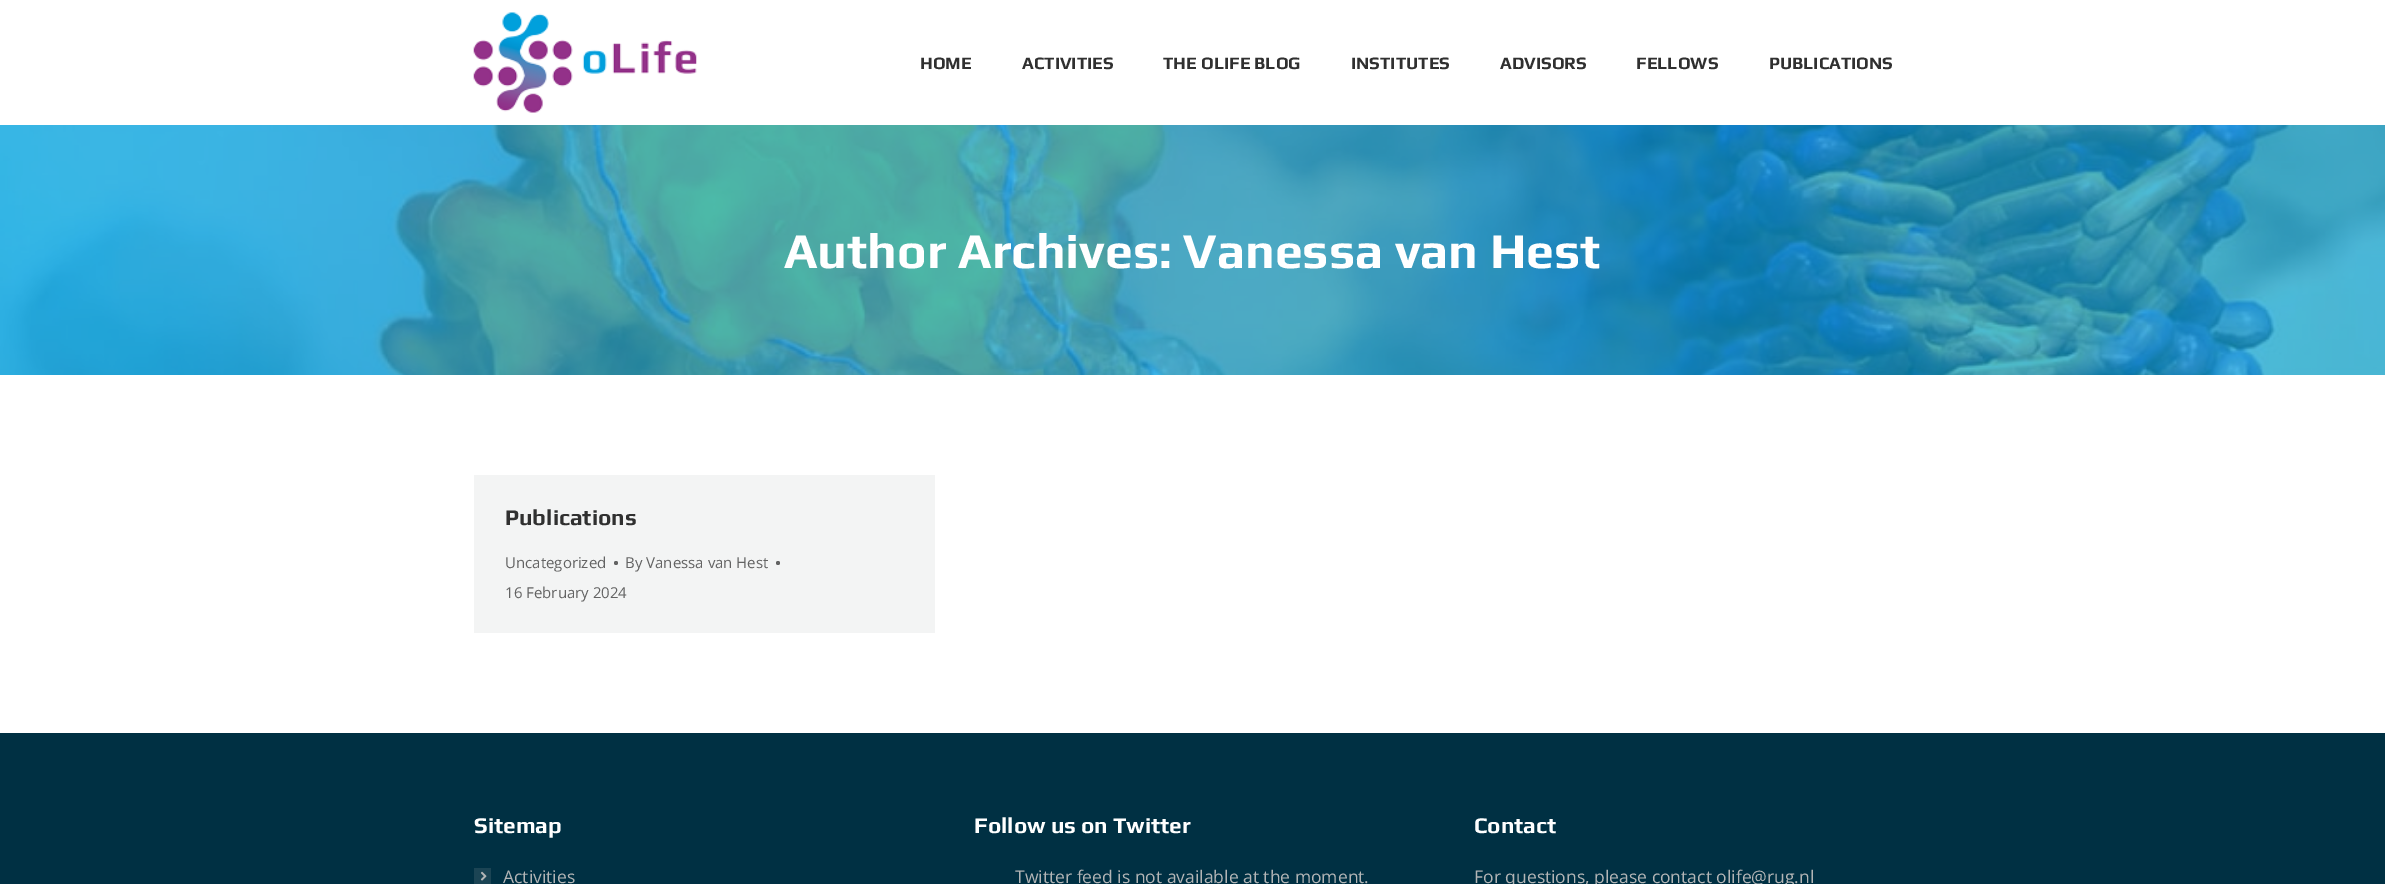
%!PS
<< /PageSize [2385 884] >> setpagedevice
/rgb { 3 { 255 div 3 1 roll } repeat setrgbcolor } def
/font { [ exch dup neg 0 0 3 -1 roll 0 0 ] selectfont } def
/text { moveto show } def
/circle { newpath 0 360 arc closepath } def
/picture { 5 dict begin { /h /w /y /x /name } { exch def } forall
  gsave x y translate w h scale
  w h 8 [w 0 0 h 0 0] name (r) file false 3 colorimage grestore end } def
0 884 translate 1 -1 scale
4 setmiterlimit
255 255 255 rgb
0 0 2385 884 rectfill
(img_01.rgb) 473 12 224 101 picture
(img_02.rgb) 0 125 2385 250 picture
243 244 244 rgb
474 475 461 158 rectfill
99 99 99 rgb
616 563 2 circle fill
778 563 2 circle fill
0 48 67 rgb
0 733 2385 151 rectfill
27 68 84 rgb
474 868 17 16 rectfill
(img_03.rgb) 480 871 7 10 picture
/Play-Bold 17.5 font
48 48 48 rgb
(HOME) 920 69 text
(ACTIVITIES) 1022 69 text
(THE OLIFE BLOG) 1163 69 text
(INSTITUTES) 1351 69 text
(ADVISORS) 1500 69 text
(FELLOWS) 1636 69 text
(PUBLICATIONS) 1769 69 text
/Play-Bold 50 font
255 255 255 rgb
(Author Archives: Vanessa van Hest) 784 268 text
/Play-Bold 22.5 font
48 48 48 rgb
(Publications) 505 525 text
/OpenSans-Regular 15 font
99 99 99 rgb
(Uncategorized) 505 568 text
(By Vanessa van Hest) 625 568 text
(16 February 2024) 505 598 text
/Play-Bold 22.5 font
255 255 255 rgb
(Sitemap) 474 833 text
/OpenSans-Regular 17.5 font
179 181 182 rgb
(Activities) 503 883 text
/Play-Bold 22.5 font
255 255 255 rgb
(Follow us on Twitter) 974 833 text
/OpenSans-Regular 17.5 font
179 181 182 rgb
(Twitter feed is not available at the moment.) 1015 883 text
/Play-Bold 22.5 font
255 255 255 rgb
(Contact) 1474 833 text
/OpenSans-Regular 17.5 font
179 181 182 rgb
(For questions, please contact olife@rug.nl) 1474 883 text
showpage
